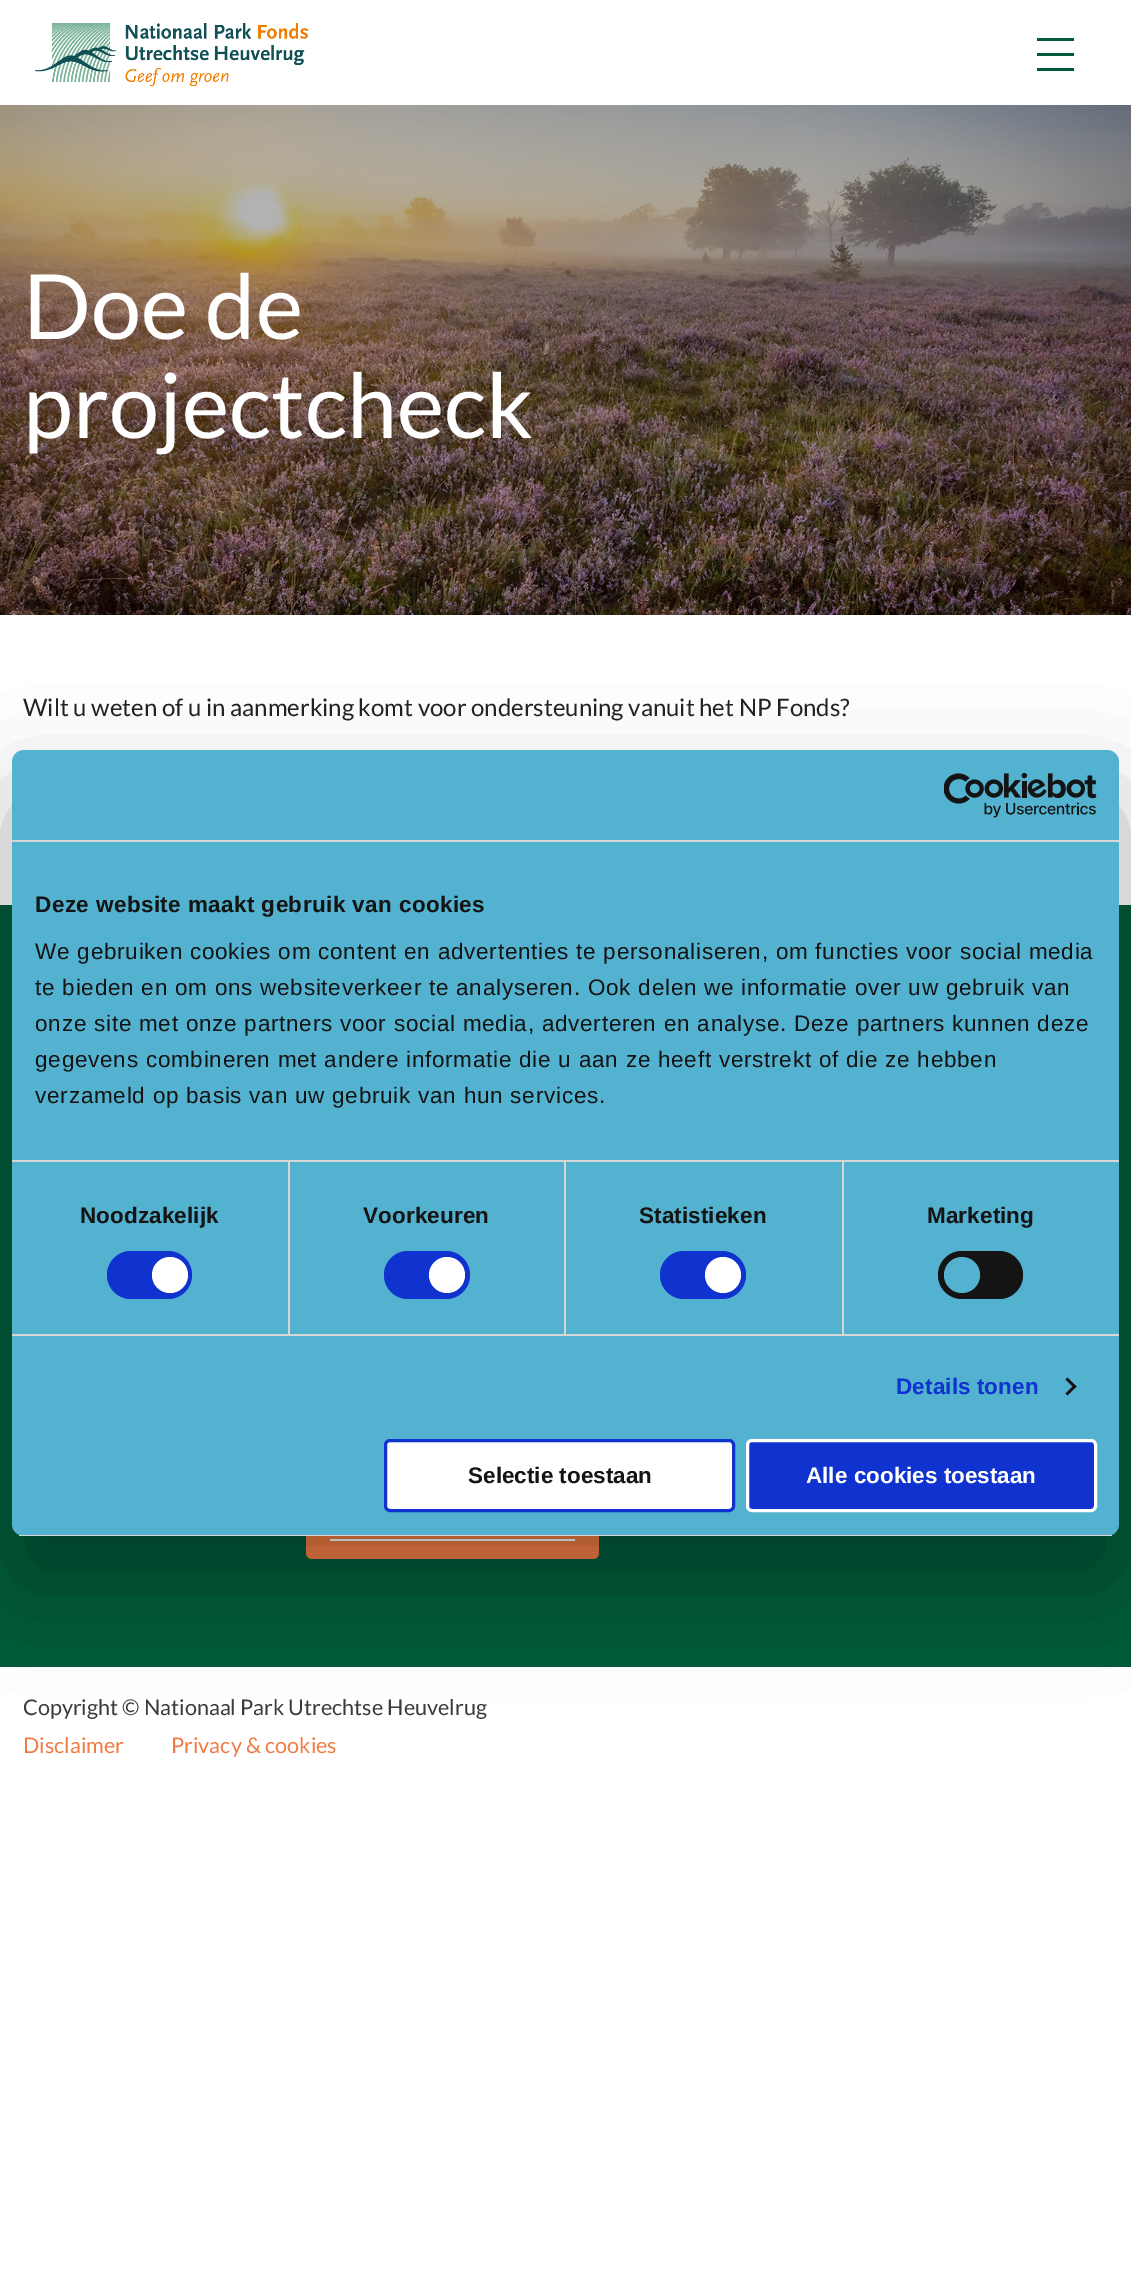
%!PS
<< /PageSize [1131 2285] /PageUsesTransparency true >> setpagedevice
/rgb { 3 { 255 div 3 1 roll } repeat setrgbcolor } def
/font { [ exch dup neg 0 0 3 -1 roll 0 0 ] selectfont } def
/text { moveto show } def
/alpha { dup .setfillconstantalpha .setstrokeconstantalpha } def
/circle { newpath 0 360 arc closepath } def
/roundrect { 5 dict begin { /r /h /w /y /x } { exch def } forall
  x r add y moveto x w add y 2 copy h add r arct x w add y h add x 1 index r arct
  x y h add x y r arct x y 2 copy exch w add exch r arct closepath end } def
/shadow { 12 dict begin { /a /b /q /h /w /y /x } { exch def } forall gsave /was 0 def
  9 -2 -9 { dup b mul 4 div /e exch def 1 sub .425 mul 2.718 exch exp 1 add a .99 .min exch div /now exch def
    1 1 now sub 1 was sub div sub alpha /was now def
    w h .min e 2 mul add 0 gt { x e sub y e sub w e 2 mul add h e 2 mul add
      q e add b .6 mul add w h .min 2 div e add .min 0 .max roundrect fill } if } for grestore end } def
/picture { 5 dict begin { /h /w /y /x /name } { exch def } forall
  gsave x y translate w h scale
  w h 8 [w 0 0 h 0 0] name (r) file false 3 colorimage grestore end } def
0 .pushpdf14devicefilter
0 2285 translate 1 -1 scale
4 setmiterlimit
255 255 255 rgb
0 0 1131 2285 rectfill
(img_01.rgb) 35 23 274 64 picture
0 91 56 rgb
1037 38 37 3 rectfill
1037 53 37 3 rectfill
1037 68 37 3 rectfill
(img_02.rgb) 0 105 1131 510 picture
0 905 1131 762 rectfill
239 123 69 rgb
306 1497 293 62 6 roundrect fill
255 255 255 rgb
330 1539 245 2 rectfill
0 0 0 rgb
12 798 1107 786 12 51 0.3 shadow
82 178 208 rgb
12 750 1107 786 12 roundrect fill
214 214 214 rgb
12 840 1107 2 rectfill
(img_03.rgb) 944 773 153 45 picture
288 1161 2 173 rectfill
564 1161 2 173 rectfill
842 1161 2 173 rectfill
12 1160 1107 2 rectfill
12 1334 1107 2 rectfill
16 50 207 rgb
107 1251 85 48 24 roundrect fill
255 255 255 rgb
170 1275 18 circle fill
16 50 207 rgb
384 1251 86 48 24 roundrect fill
255 255 255 rgb
447 1275 18 circle fill
16 50 207 rgb
660 1251 86 48 24 roundrect fill
255 255 255 rgb
723 1275 18 circle fill
20 20 20 rgb
938 1251 85 48 24 roundrect fill
82 178 208 rgb
962 1275 18 circle fill
20 20 20 rgb
1067.5 1377.5 moveto 9 9 rlineto -2 2 rlineto -9 -9 rlineto closepath fill
1074.5 1384.5 moveto 2 2 rlineto -9 9 rlineto -2 -2 rlineto closepath fill
gsave
12 750 1107 786 12 roundrect clip newpath
214 214 214 rgb
12 1535 1107 1 rectfill
grestore
255 255 255 rgb
385.5 1440.5 348 70 4.5 roundrect gsave fill grestore
16 50 207 rgb
3 setlinewidth
stroke
747.5 1440.5 348 70 4.5 roundrect gsave fill grestore
255 255 255 rgb
stroke
/Lato-Regular 90 font
(Doe de) 23 339 text
(projectcheck) 23 438 text
/Lato-Regular 24 font
34 34 34 rgb
(Wilt u weten of u in aanmerking komt voor ondersteuning vanuit het NP Fonds?) 23 716 text
/Lato-Regular 21.6 font
59 59 59 rgb
(Copyright © Nationaal Park Utrechtse Heuvelrug) 23 1715 text
239 123 69 rgb
(Disclaimer) 23 1753 text
(Privacy & cookies) 171 1753 text
/LiberationSans-Bold 22.5 font
20 20 20 rgb
35 912 moveto 0.4 0 (Deze website maakt gebruik van cookies) ashow
/LiberationSans-Regular 22.5 font
35 959 moveto 0.75 0 (We gebruiken cookies om content en advertenties te personaliseren, om functies voor social media) ashow
35 995 moveto 0.75 0 (te bieden en om ons websiteverkeer te analyseren. Ook delen we informatie over uw gebruik van) ashow
35 1031 moveto 0.75 0 (onze site met onze partners voor social media, adverteren en analyse. Deze partners kunnen deze) ashow
35 1067 moveto 0.75 0 (gegevens combineren met andere informatie die u aan ze heeft verstrekt of die ze hebben) ashow
35 1103 moveto 0.75 0 (verzameld op basis van uw gebruik van hun services.) ashow
/LiberationSans-Bold 22.5 font
80 1223 moveto 0.1 0 (Noodzakelijk) ashow
363 1223 moveto 0.1 0 (Voorkeuren) ashow
639 1223 moveto 0.1 0 (Statistieken) ashow
927 1223 moveto 0.1 0 (Marketing) ashow
16 50 207 rgb
896 1394 moveto 0.1 0 (Details tonen) ashow
20 20 20 rgb
(Selectie toestaan) 468 1483 text
255 255 255 rgb
(Alle cookies toestaan) 806 1483 text
.poppdf14devicefilter showpage
